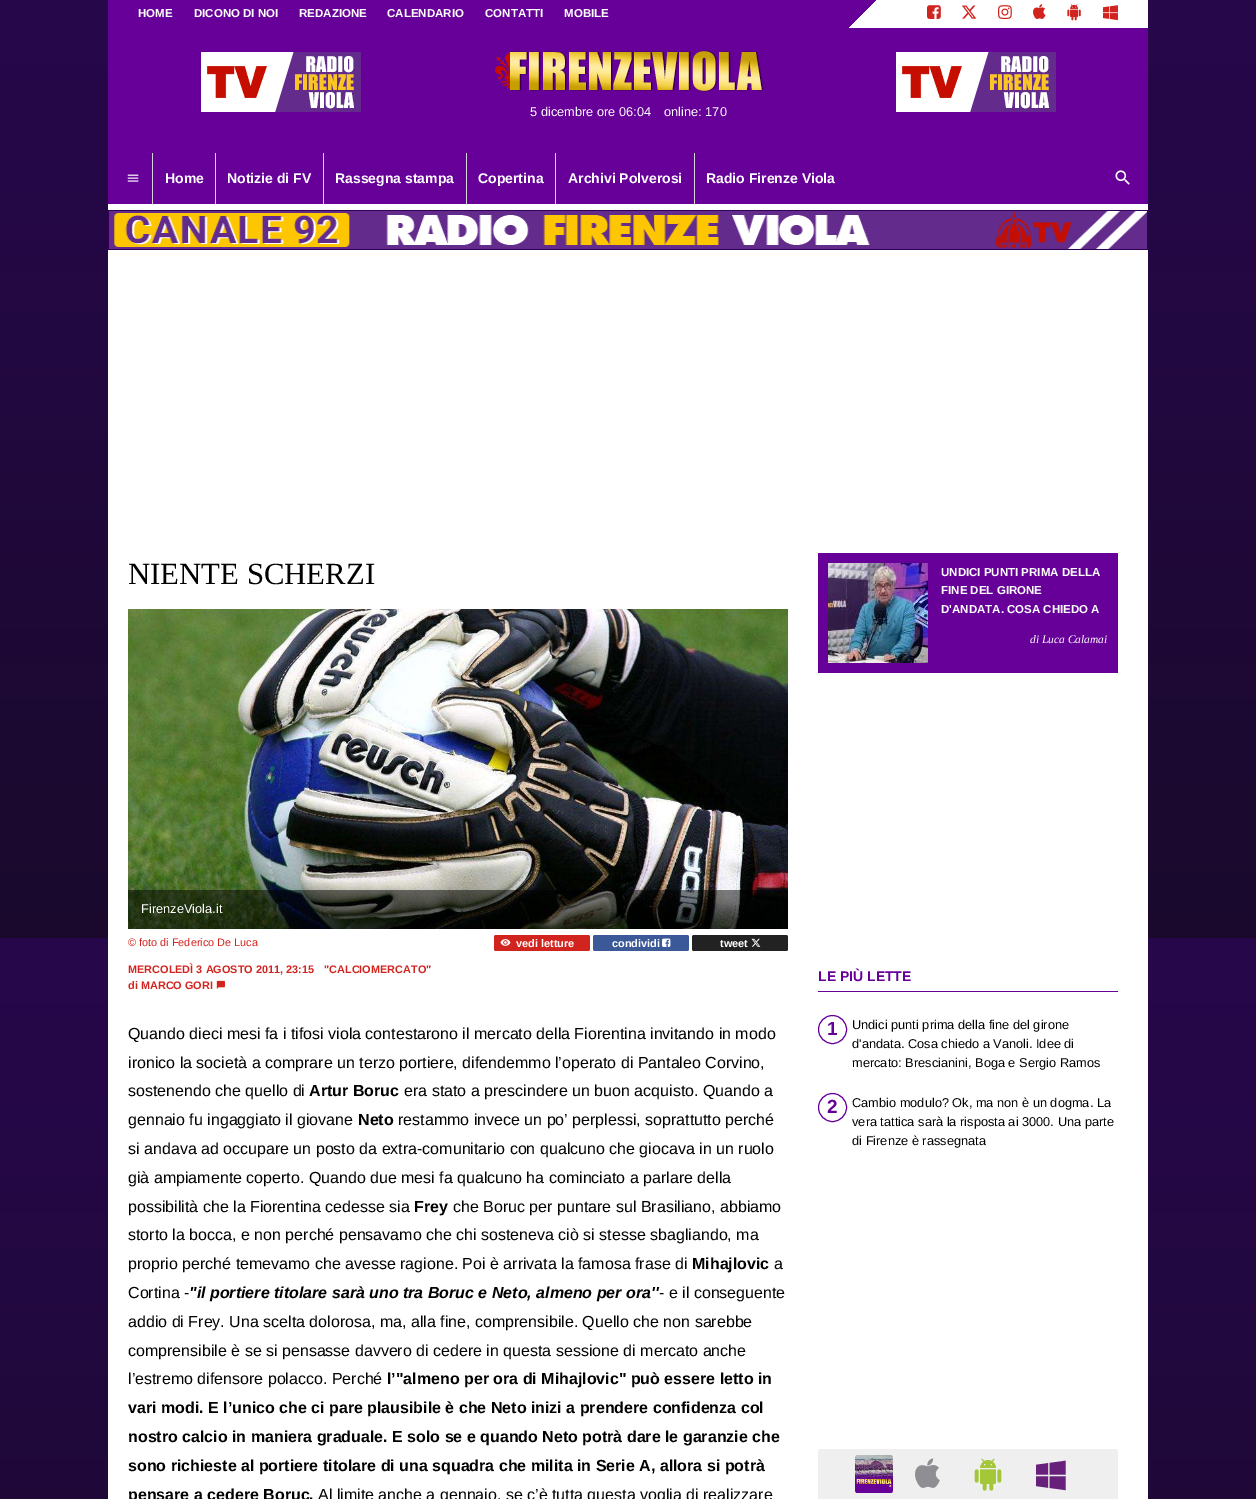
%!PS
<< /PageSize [1256 1499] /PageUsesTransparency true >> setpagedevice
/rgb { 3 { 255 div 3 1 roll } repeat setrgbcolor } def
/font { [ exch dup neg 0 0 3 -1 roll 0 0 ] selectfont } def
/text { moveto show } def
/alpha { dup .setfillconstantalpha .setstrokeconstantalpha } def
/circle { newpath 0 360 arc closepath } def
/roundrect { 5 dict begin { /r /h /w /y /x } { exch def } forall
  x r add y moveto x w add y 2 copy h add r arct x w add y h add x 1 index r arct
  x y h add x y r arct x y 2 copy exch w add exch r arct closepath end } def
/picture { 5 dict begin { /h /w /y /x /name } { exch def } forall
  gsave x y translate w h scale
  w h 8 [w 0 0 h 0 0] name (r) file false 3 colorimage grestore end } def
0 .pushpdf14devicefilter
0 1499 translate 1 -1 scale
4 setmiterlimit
255 255 255 rgb
0 0 1256 1499 rectfill
(img_01.rgb) 0 0 1256 1499 picture
108 204 1040 1295 rectfill
gsave 108 0 moveto 1040 0 rlineto 0 28 rlineto -1040 0 rlineto closepath clip newpath
<< /ShadingType 2 /ColorSpace /DeviceRGB /Coords [361 -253 895 281] /Extend [true true] /Function << /FunctionType 3 /Domain [0 1] /Functions [<< /FunctionType 2 /Domain [0 1] /C0 [0.4 0 0.6] /C1 [0.4 0 0.6] /N 1 >> << /FunctionType 2 /Domain [0 1] /C0 [1 1 1] /C1 [1 1 1] /N 1 >>] /Bounds [0.72] /Encode [0 1 0 1] >> >> shfill grestore
(img_02.rgb) 927 5 14 14 picture
(img_03.rgb) 962 5 15 14 picture
(img_04.rgb) 998 5 14 14 picture
(img_05.rgb) 1033 4 13 15 picture
(img_06.rgb) 1067 4 14 17 picture
(img_07.rgb) 1103 5 15 16 picture
102 0 153 rgb
108 28 1040 176 rectfill
(img_08.rgb) 201 52 160 60 picture
(img_09.rgb) 495 50 269 42 picture
(img_08.rgb) 896 52 160 60 picture
(img_10.rgb) 127 174 12 8 picture
214 214 214 rgb
152 153 1 51 rectfill
215 153 1 51 rectfill
323 153 1 51 rectfill
466 153 1 51 rectfill
555 153 1 51 rectfill
694 153 1 51 rectfill
(img_11.rgb) 1115 170 15 15 picture
(img_12.rgb) 108 210 1040 40 picture
(img_13.rgb) 128 609 660 320 picture
0.5 alpha
0 0 0 rgb
128 890 660 39 rectfill
1 alpha
210 36 30 rgb
494 935 96 16 2 roundrect fill
(img_14.rgb) 500 939 11 7 picture
59 89 152 rgb
593 935 96 16 2 roundrect fill
(img_15.rgb) 662 938 9 9 picture
34 34 34 rgb
692 935 96 16 2 roundrect fill
(img_16.rgb) 751 938 10 9 picture
(img_17.rgb) 216 980 9 9 picture
102 0 153 rgb
818 553 300 120 rectfill
(img_18.rgb) 828 563 100 100 picture
818 991 300 1 rectfill
832.5 1029.5 14 circle stroke
832.5 1107.5 14 circle stroke
239 239 239 rgb
818 1449 300 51 2.5 roundrect fill
(img_19.rgb) 855 1455 38 38 picture
(img_20.rgb) 915 1458 25 30 picture
(img_21.rgb) 974 1458 28 33 picture
(img_22.rgb) 1036 1460 30 31 picture
/LiberationSans-Bold 11.5 font
255 255 255 rgb
(HOME) 138 17 text
(DICONO DI NOI) 194 17 text
(REDAZIONE) 299 17 text
(CALENDARIO) 387 17 text
(CONTATTI) 485 17 text
(MOBILE) 564 17 text
/LiberationSans-Regular 12.8 font
(5 dicembre ore 06:04) 530 116 text
(online: 170) 664 116 text
/LiberationSans-Bold 14 font
(Home) 165 183 text
(Notizie di FV) 227 183 text
(Rassegna stampa) 335 183 text
(Copertina) 478 183 text
(Archivi Polverosi) 568 183 text
(Radio Firenze Viola) 706 183 text
/LiberationSerif-Regular 30.75 font
0 0 0 rgb
(NIENTE SCHERZI) 128 584 text
/LiberationSans-Regular 12.8 font
255 255 255 rgb
(FirenzeViola.it) 141 913 text
/LiberationSans-Regular 10.9 font
210 36 30 rgb
(© foto di Federico De Luca) 128 946 text
/LiberationSans-Bold 10.9 font
255 255 255 rgb
(vedi letture) 516 947 text
(condividi) 612 947 text
(tweet) 720 947 text
210 36 30 rgb
(MERCOLEDÌ 3 AGOSTO 2011, 23:15) 128 973 text
("CALCIOMERCATO") 324 973 text
(di MARCO GORI) 128 989 text
/LiberationSans-Regular 16 font
0 0 0 rgb
(Quando dieci mesi fa i tifosi viola contestarono il mercato della Fiorentina invitando in modo) 128 1039 text
(ironico la società a comprare un terzo portiere, difendemmo l’operato di Pantaleo Corvino,) 128 1068 text
(sostenendo che quello di) 128 1096 text
/LiberationSans-Bold 16 font
(Artur Boruc) 309 1096 text
/LiberationSans-Regular 16 font
(era stato a prescindere un buon acquisto. Quando a) 404 1096 text
(gennaio fu ingaggiato il giovane) 128 1125 text
/LiberationSans-Bold 16 font
(Neto) 358 1125 text
/LiberationSans-Regular 16 font
(restammo invece un po’ perplessi, soprattutto perché) 398 1125 text
(si andava ad occupare un posto da extra-comunitario con qualcuno che giocava in un ruolo) 128 1154 text
(già ampiamente coperto. Quando due mesi fa qualcuno ha cominciato a parlare della) 128 1183 text
(possibilità che la Fiorentina cedesse sia) 128 1212 text
/LiberationSans-Bold 16 font
(Frey) 414 1212 text
/LiberationSans-Regular 16 font
(che Boruc per puntare sul Brasiliano, abbiamo) 453 1212 text
(storto la bocca, e non perché pensavamo che chi sosteneva ciò si stesse sbagliando, ma) 128 1240 text
(proprio perché temevamo che avesse ragione. Poi è arrivata la famosa frase di) 128 1269 text
/LiberationSans-Bold 16 font
(Mihajlovic) 692 1269 text
/LiberationSans-Regular 16 font
(a) 774 1269 text
(Cortina -) 128 1298 text
/LiberationSans-BoldItalic 16 font
("il portiere titolare sarà uno tra Boruc e Neto, almeno per ora'') 189 1298 text
/LiberationSans-Regular 16 font
(- e il conseguente) 659 1298 text
(addio di Frey. Una scelta dolorosa, ma, alla fine, comprensibile. Quello che non sarebbe) 128 1327 text
(comprensibile è se si pensasse davvero di cedere in questa sessione di mercato anche) 128 1356 text
(l’estremo difensore polacco. Perché) 128 1384 text
/LiberationSans-Bold 16 font
(l’"almeno per ora di Mihajlovic" può essere letto in) 387 1384 text
(vari modi. E l’unico che ci pare plausibile è che Neto inizi a prendere confidenza col) 128 1413 text
(nostro calcio in maniera graduale. E solo se e quando Neto potrà dare le garanzie che) 128 1442 text
(sono richieste al portiere titolare di una squadra che milita in Serie A, allora si potrà) 128 1471 text
(pensare a cedere Boruc.) 128 1500 text
/LiberationSans-Regular 16 font
(Al limite anche a gennaio, se c’è tutta questa voglia di realizzare) 318 1500 text
/LiberationSans-Bold 11.5 font
255 255 255 rgb
(UNDICI PUNTI PRIMA DELLA) 941 576 text
(FINE DEL GIRONE) 941 594 text
(D'ANDATA. COSA CHIEDO A) 941 613 text
/LiberationSerif-Italic 11.5 font
(di Luca Calamai) 1030 643 text
/LiberationSans-Bold 14 font
102 0 153 rgb
(LE PIÙ LETTE) 818 981 text
/LiberationSans-Bold 19 font
(1) 827 1035 text
/LiberationSans-Regular 12.8 font
0 0 0 rgb
(Undici punti prima della fine del girone) 852 1029 text
(d'andata. Cosa chiedo a Vanoli. Idee di) 852 1048 text
(mercato: Brescianini, Boga e Sergio Ramos) 852 1067 text
/LiberationSans-Bold 19 font
102 0 153 rgb
(2) 827 1113 text
/LiberationSans-Regular 12.8 font
0 0 0 rgb
(Cambio modulo? Ok, ma non è un dogma. La) 852 1107 text
(vera tattica sarà la risposta ai 3000. Una parte) 852 1126 text
(di Firenze è rassegnata) 852 1145 text
.poppdf14devicefilter showpage
